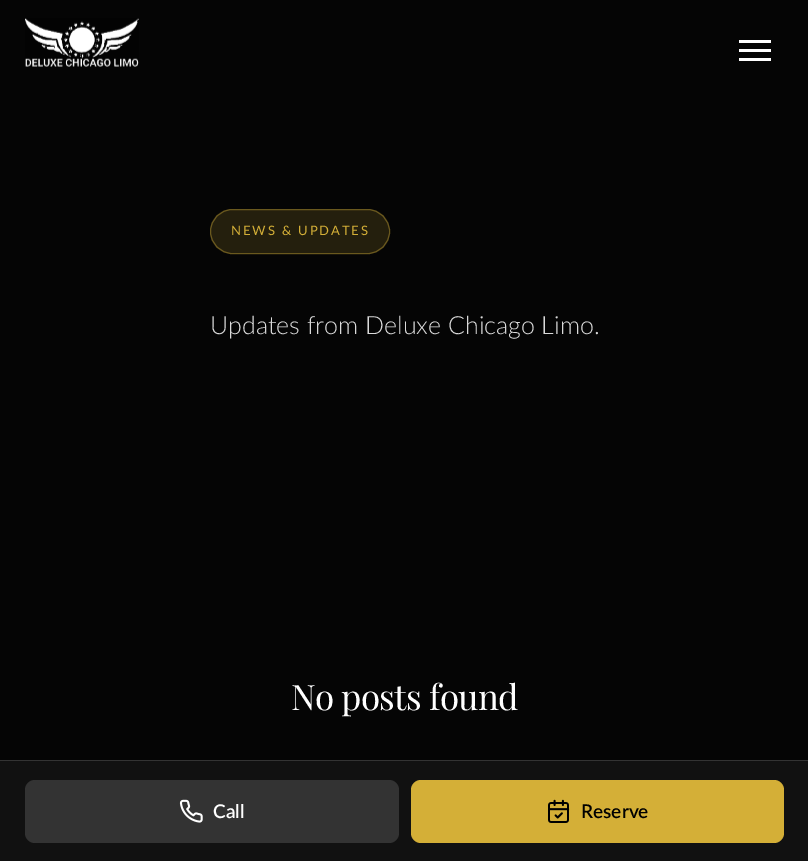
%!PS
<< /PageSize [808 861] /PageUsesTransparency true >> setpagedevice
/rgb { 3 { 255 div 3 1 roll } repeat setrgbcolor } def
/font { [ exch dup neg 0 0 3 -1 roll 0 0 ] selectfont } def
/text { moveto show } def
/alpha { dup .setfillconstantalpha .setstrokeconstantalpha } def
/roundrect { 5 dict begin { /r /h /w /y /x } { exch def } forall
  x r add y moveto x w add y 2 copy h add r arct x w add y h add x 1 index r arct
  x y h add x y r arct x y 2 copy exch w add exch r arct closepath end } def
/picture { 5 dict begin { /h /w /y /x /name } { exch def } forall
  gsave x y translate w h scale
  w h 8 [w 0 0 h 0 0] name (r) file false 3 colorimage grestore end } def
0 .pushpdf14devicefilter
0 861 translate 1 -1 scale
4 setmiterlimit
5 5 5 rgb
0 0 808 861 rectfill
(img_01.rgb) 25 18 114 49 picture
255 255 255 rgb
739 40 32 3 rectfill
739 49 32 3 rectfill
739 58 32 3 rectfill
36 31 13 rgb
210 209 180 45 22.5 roundrect fill
0.4 alpha
212 175 55 rgb
210.5 209.5 179 44 22 roundrect stroke
1 alpha
17 17 17 rgb
0 761 808 100 rectfill
51 51 51 rgb
0 760 808 1 rectfill
25 780 374 63 10 roundrect fill
(img_02.rgb) 179 799 24 24 picture
212 175 55 rgb
411 780 373 63 10 roundrect fill
(img_03.rgb) 548 799 22 24 picture
/Lato-Regular 13 font
231 235 moveto 1.9 0 (NEWS & UPDATES) ashow
/Lato-Light 25 font
218 218 218 rgb
(Updates from Deluxe Chicago Limo.) 210 334 text
/PlayfairDisplay-Regular 35 font
255 255 255 rgb
291 710 moveto -0.75 0 (No posts found) ashow
/Lato-SemiBold 19 font
(Call) 213 818 text
0 0 0 rgb
(Reserve) 581 818 text
.poppdf14devicefilter showpage
